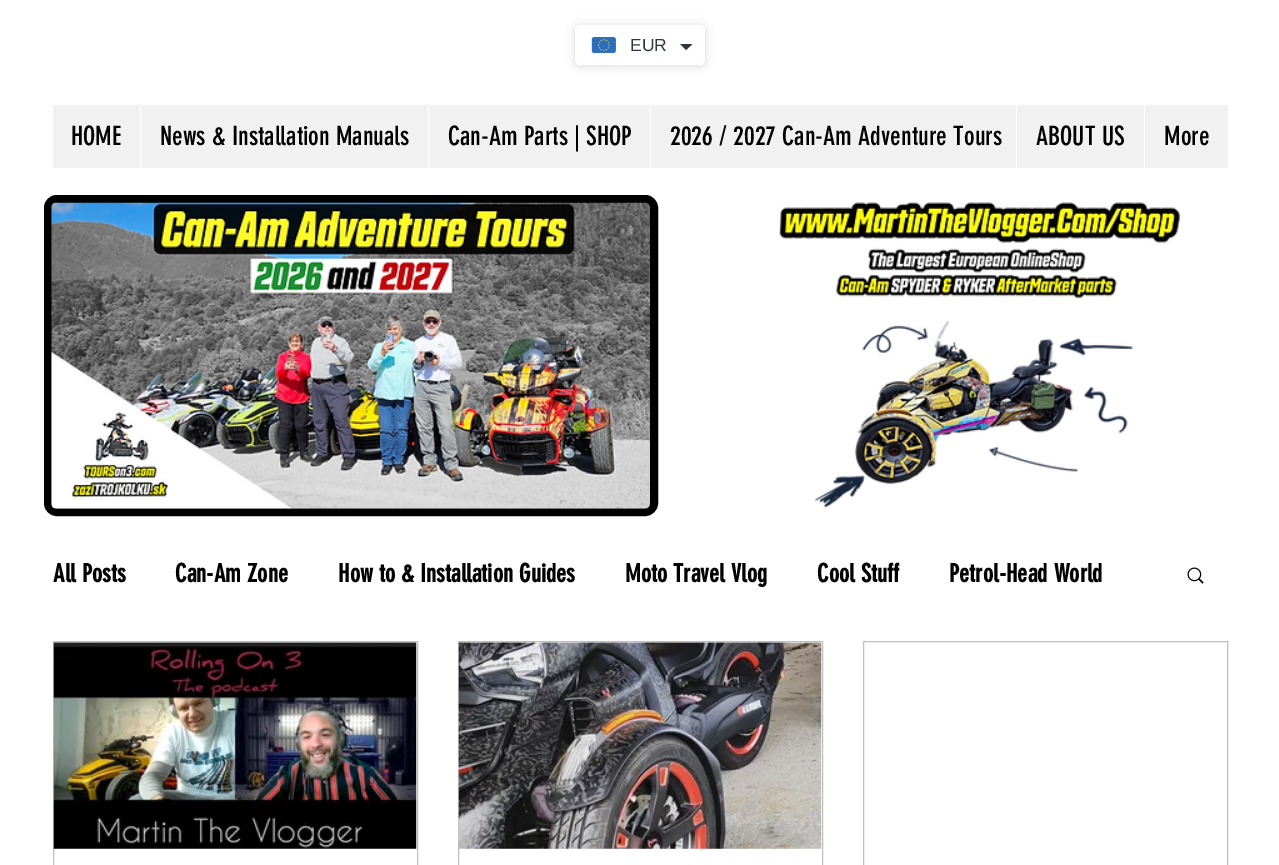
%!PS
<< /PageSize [1279 865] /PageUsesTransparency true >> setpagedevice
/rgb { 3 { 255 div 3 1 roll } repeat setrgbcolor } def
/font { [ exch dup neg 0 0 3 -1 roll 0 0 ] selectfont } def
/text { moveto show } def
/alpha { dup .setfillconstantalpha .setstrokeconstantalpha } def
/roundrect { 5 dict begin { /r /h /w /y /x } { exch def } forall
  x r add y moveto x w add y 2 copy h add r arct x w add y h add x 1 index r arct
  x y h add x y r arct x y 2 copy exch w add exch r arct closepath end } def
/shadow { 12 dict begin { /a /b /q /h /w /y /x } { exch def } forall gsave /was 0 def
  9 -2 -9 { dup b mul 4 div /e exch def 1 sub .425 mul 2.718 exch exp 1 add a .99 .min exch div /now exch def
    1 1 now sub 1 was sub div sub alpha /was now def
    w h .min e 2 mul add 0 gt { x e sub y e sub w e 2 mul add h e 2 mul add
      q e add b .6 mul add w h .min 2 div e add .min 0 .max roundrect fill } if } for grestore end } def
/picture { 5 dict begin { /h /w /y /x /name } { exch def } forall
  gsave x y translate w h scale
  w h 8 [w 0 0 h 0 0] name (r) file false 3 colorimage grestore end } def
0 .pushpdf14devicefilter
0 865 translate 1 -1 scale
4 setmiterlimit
255 255 255 rgb
0 0 1279 865 rectfill
0 0 0 rgb
575 26 130 40 5 5 0.15 shadow
255 255 255 rgb
575 25 130 40 5 roundrect fill
(img_01.rgb) 591 37 25 16 picture
47 54 61 rgb
680 44 moveto 12.5 0 rlineto -6.5 6 rlineto closepath fill
241 241 241 rgb
53 105 1175 63 rectfill
255 255 255 rgb
140 105 1 63 rectfill
428 105 1 63 rectfill
650 105 1 63 rectfill
1016 105 1 63 rectfill
1144 105 1 63 rectfill
0 0 0 rgb
8 setlinewidth
48 199 606 313 9 roundrect stroke
(img_02.rgb) 51 202 599 307 picture
(img_03.rgb) 779 202 402 306 picture
(img_04.rgb) 1187 567 17 17 picture
191 191 191 rgb
1 setlinewidth
53.5 641.5 364 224 rectstroke
(img_05.rgb) 53 642 364 207 picture
458.5 641.5 364 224 rectstroke
(img_06.rgb) 458 642 364 207 picture
863.5 641.5 364 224 rectstroke
/LiberationSans-Regular 17.5 font
47 54 61 rgb
(EUR) 630 51 text
/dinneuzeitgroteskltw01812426-Regular 26.25 font
0 0 0 rgb
(HOME) 71 145 text
(News & Installation Manuals) 160 145 text
(Can-Am Parts | SHOP) 448 145 text
(2026 / 2027 Can-Am Adventure Tours) 670 145 text
(ABOUT US) 1036 145 text
(More) 1164 145 text
/dinneuzeitgroteskltw01812426-Bold 25 font
(All Posts) 53 582 text
(Can-Am Zone) 175 582 text
(How to & Installation Guides) 338 582 text
(Moto Travel Vlog) 625 582 text
(Cool Stuff) 817 582 text
(Petrol-Head World) 949 582 text
.poppdf14devicefilter showpage
